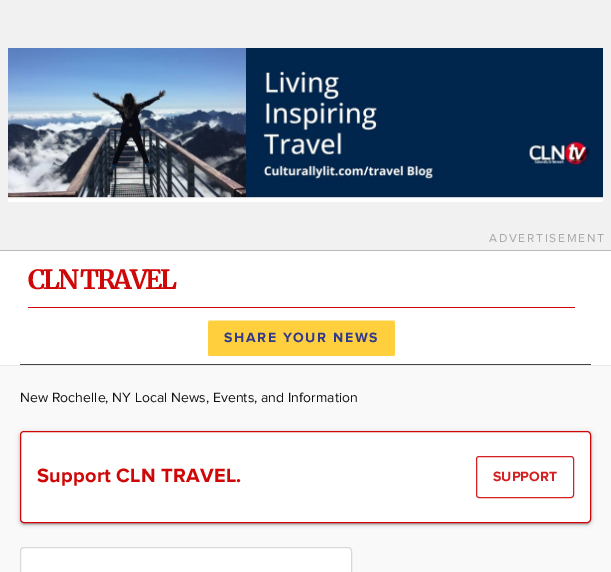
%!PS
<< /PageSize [611 572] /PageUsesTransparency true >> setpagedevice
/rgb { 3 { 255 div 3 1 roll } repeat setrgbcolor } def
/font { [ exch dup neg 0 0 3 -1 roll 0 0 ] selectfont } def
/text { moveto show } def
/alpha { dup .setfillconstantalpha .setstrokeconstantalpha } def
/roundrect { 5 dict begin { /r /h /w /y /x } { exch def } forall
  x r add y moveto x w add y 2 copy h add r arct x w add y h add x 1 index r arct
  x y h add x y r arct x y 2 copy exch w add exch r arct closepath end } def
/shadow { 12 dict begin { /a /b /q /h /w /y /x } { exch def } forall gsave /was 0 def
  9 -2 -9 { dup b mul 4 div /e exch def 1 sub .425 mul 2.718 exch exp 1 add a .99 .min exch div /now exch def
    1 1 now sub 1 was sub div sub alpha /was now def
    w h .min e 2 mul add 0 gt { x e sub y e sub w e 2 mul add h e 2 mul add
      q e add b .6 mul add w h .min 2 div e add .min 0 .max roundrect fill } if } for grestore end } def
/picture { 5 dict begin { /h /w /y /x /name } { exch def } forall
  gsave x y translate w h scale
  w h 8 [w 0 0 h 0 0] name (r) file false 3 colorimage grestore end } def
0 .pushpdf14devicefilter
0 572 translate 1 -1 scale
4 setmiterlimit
249 249 249 rgb
0 0 611 572 rectfill
241 241 241 rgb
0 0 611 250 rectfill
187 187 187 rgb
0 250 611 1 rectfill
(img_01.rgb) 8 48 595 154 picture
255 255 255 rgb
0 251 611 114 rectfill
234 234 234 rgb
0 365 611 1 rectfill
68 68 68 rgb
20 364 571 1 rectfill
207 7 7 rgb
28 307 547 1 rectfill
255 207 62 rgb
208 320 187 36 2 roundrect fill
0.5 alpha
255 255 255 rgb
210 321 moveto 183 0 rlineto 1 0 2 1 2 2 rcurveto 0 -1 rlineto 0 -1 -1 -2 -2 -2 rcurveto -183 0 rlineto -1 0 -2 1 -2 2 rcurveto 0 1 rlineto 0 -1 1 -2 2 -2 rcurveto closepath fill
1 alpha
0 0 0 rgb
22 436 567 88 2 0.5 0.12 shadow
20 433 571 92 4 1 0.14 shadow
20 432 571 92 4 2.5 0.2 shadow
255 255 255 rgb
20.5 431.5 570 91 3.5 roundrect gsave fill grestore
207 7 7 rgb
stroke
212 32 32 rgb
476.5 456.5 97 41 2.5 roundrect stroke
255 255 255 rgb
20.5 547.5 331 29 3.5 roundrect gsave fill grestore
216 216 216 rgb
stroke
/ProximaNova-Regular 12 font
168 168 168 rgb
489 242 moveto 1.75 0 (ADVERTISEMENT) ashow
/Merriweather-Bold 26.5 font
207 7 7 rgb
28 289 moveto -2.4 0 (CLN TRAVEL) ashow
/ProximaNova-Bold 14 font
49 57 139 rgb
224 342 moveto 1.6 0 (SHARE YOUR NEWS) ashow
/ProximaNova-Regular 14 font
17 17 17 rgb
20 402 moveto 0.05 0 (New Rochelle, NY Local News, Events, and Information) ashow
/ProximaNova-Bold 20 font
207 7 7 rgb
37 482 moveto 0.25 0 (Support CLN TRAVEL.) ashow
/ProximaNova-Bold 14 font
212 32 32 rgb
(SUPPORT) 493 481 text
.poppdf14devicefilter showpage
